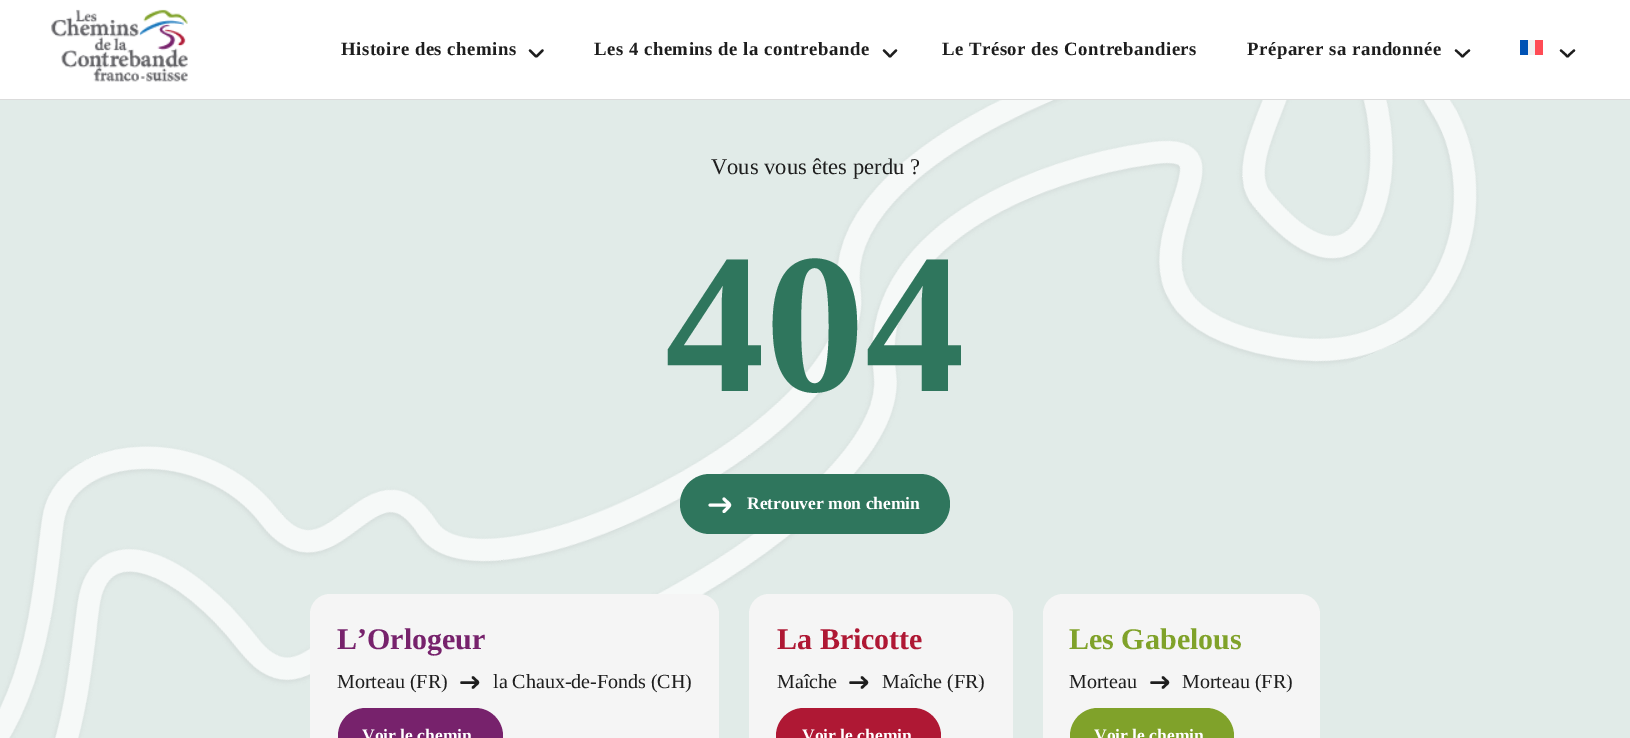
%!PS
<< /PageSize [1630 738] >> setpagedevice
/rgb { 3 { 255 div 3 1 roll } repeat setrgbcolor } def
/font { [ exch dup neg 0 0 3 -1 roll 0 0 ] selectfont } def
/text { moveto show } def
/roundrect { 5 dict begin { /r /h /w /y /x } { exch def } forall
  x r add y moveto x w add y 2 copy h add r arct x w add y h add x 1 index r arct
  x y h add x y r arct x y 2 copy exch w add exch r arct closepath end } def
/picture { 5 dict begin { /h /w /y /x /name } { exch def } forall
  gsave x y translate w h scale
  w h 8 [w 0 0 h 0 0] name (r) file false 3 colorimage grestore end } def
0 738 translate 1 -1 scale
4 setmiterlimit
225 235 232 rgb
0 0 1630 738 rectfill
255 255 255 rgb
0 0 1630 99 rectfill
219 219 219 rgb
0 99 1630 1 rectfill
(img_01.rgb) 51 9 137 73 picture
30 30 30 rgb
2.2 setlinewidth
1 setlinecap
1 setlinejoin
530 50.5 moveto 4.5 4.5 rlineto 2 2 1.5 2 3.5 0 rcurveto 4.5 -4.5 rlineto stroke
884 50.5 moveto 4.5 4.5 rlineto 1.5 2 1.5 2 3 0 rcurveto 4.5 -4.5 rlineto stroke
1456 50.5 moveto 5 4.5 rlineto 1.5 2 1.5 2 3 0 rcurveto 5 -4.5 rlineto stroke
0 82 180 rgb
1520 40 8 15 rectfill
240 240 240 rgb
1528 40 7 15 rectfill
255 75 85 rgb
1535 40 8 15 rectfill
30 30 30 rgb
1561 50.5 moveto 5 4.5 rlineto 1.5 2 1.5 2 3 0 rcurveto 5 -4.5 rlineto stroke
(img_02.rgb) 0 100 1479 638 picture
47 118 93 rgb
680 474 270 60 30 roundrect fill
255 255 255 rgb
3 setlinewidth
728.5 505 moveto -18.5 0 rlineto 724 499 moveto 7.5 7.5 7.5 4.5 0 12.5 rcurveto stroke
245 245 245 rgb
310 594 409 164 20 roundrect fill
30 30 30 rgb
2.5 setlinewidth
477.5 682.5 moveto -16 0 rlineto 473 677.5 moveto 6.5 6.5 6.5 3.5 0 10 rcurveto stroke
119 34 108 rgb
338 708 165 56 28 roundrect fill
245 245 245 rgb
749 594 264 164 20 roundrect fill
30 30 30 rgb
866 682.5 moveto -15.5 0 rlineto 862 677.5 moveto 6.5 6.5 6.5 3.5 0 10 rcurveto stroke
175 24 52 rgb
776 708 165 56 28 roundrect fill
245 245 245 rgb
1043 594 277 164 20 roundrect fill
30 30 30 rgb
1167.5 682.5 moveto -16 0 rlineto 1163 677.5 moveto 6.5 6.5 6.5 3.5 0 10 rcurveto stroke
128 162 42 rgb
1070 708 164 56 28 roundrect fill
/LiberationSerif-Bold 18.75 font
30 30 30 rgb
341 55 moveto 0.5 0 (Histoire des chemins) ashow
594 55 moveto 0.5 0 (Les 4 chemins de la contrebande) ashow
942 55 moveto 0.5 0 (Le Trésor des Contrebandiers) ashow
1247 55 moveto 0.5 0 (Préparer sa randonnée) ashow
/LiberationSerif-Regular 22.5 font
(Vous vous êtes perdu ?) 711 174 text
/LiberationSerif-Bold 200 font
47 118 93 rgb
(404) 665 391 text
/LiberationSerif-Bold 17.5 font
255 255 255 rgb
(Retrouver mon chemin) 747 509 text
/LiberationSerif-Bold 30 font
119 34 108 rgb
(L’Orlogeur) 337 649 text
/LiberationSerif-Regular 20 font
30 30 30 rgb
(Morteau \(FR\)) 337 688 text
(la Chaux-de-Fonds \(CH\)) 493 688 text
/LiberationSerif-Bold 17.5 font
255 255 255 rgb
(Voir le chemin) 362 741 text
/LiberationSerif-Bold 30 font
175 24 52 rgb
(La Bricotte) 777 649 text
/LiberationSerif-Regular 20 font
30 30 30 rgb
(Maîche) 777 688 text
(Maîche \(FR\)) 882 688 text
/LiberationSerif-Bold 17.5 font
255 255 255 rgb
(Voir le chemin) 802 741 text
/LiberationSerif-Bold 30 font
128 162 42 rgb
(Les Gabelous) 1069 649 text
/LiberationSerif-Regular 20 font
30 30 30 rgb
(Morteau) 1069 688 text
(Morteau \(FR\)) 1182 688 text
/LiberationSerif-Bold 17.5 font
255 255 255 rgb
(Voir le chemin) 1094 741 text
showpage
